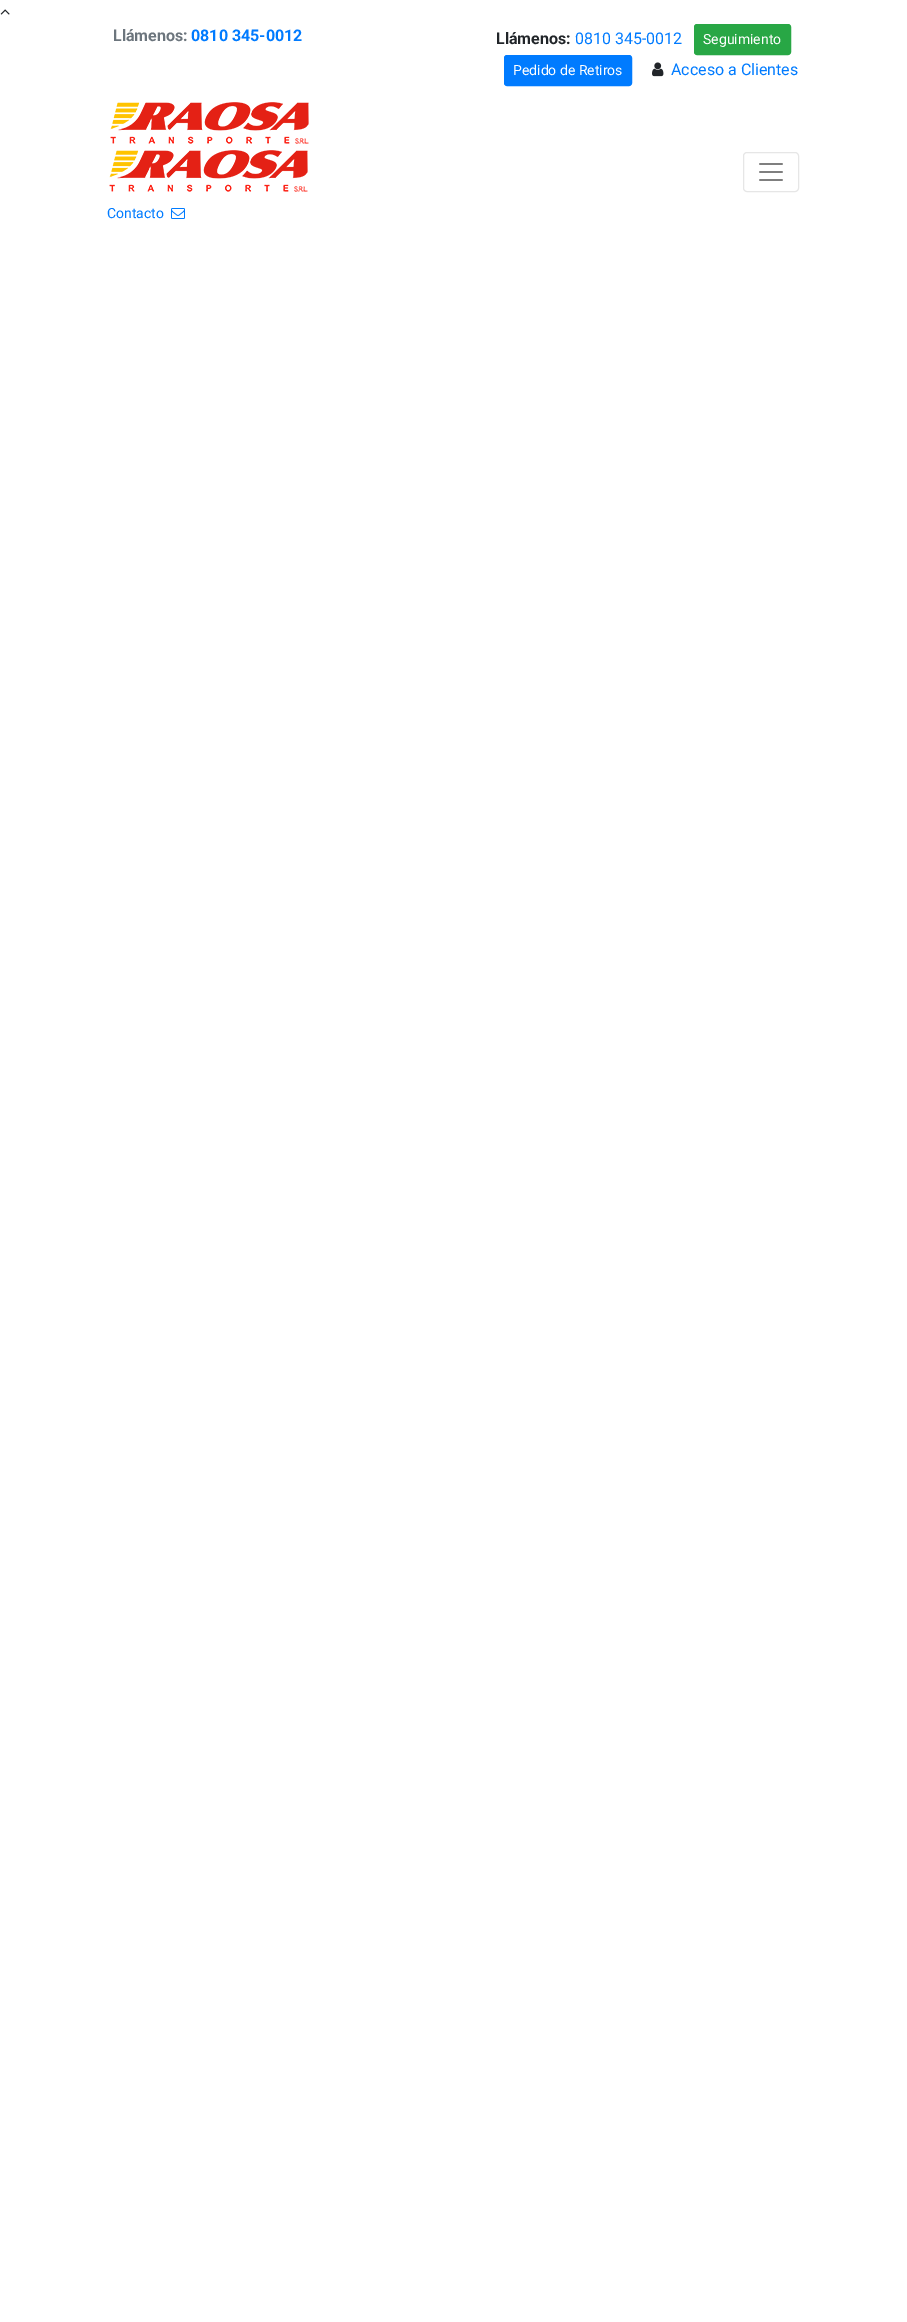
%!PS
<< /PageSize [907 2322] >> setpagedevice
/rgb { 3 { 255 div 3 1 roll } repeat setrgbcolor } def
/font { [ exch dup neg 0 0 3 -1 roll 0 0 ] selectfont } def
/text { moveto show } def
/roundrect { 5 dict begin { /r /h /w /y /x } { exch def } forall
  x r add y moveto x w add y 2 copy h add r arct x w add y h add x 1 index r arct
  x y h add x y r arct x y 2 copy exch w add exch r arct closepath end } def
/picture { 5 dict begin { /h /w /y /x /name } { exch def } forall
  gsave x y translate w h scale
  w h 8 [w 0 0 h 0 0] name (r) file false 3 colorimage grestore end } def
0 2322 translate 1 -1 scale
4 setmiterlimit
255 255 255 rgb
0 0 907 2322 rectfill
(img_01.rgb) 0 9 10 6 picture
40 167 69 rgb
694.5 24.5 96 30 2.5 roundrect gsave fill grestore
stroke
0 123 255 rgb
504.5 55.5 127 30 2.5 roundrect gsave fill grestore
stroke
(img_02.rgb) 652 62 12 15 picture
(img_03.rgb) 110 102 199 42 picture
(img_03.rgb) 109 150 199 42 picture
230 230 230 rgb
743.5 152.5 55 39 3.5 roundrect stroke
(img_04.rgb) 759 163 24 18 picture
(img_05.rgb) 171 208 14 11 picture
/Roboto-Bold 16 font
108 117 125 rgb
(Llámenos:) 113 41 text
0 123 255 rgb
(0810 345-0012) 191 41 text
33 37 41 rgb
(Llámenos:) 496 44 text
/Roboto-Regular 16 font
0 123 255 rgb
(0810 345-0012) 575 44 text
/Roboto-Regular 14 font
255 255 255 rgb
(Seguimiento) 703 44 text
(Pedido de Retiros) 513 75 text
/Roboto-Regular 16 font
0 123 255 rgb
(Acceso a Clientes) 671 75 text
/Roboto-Regular 14 font
(Contacto) 107 218 text
showpage
